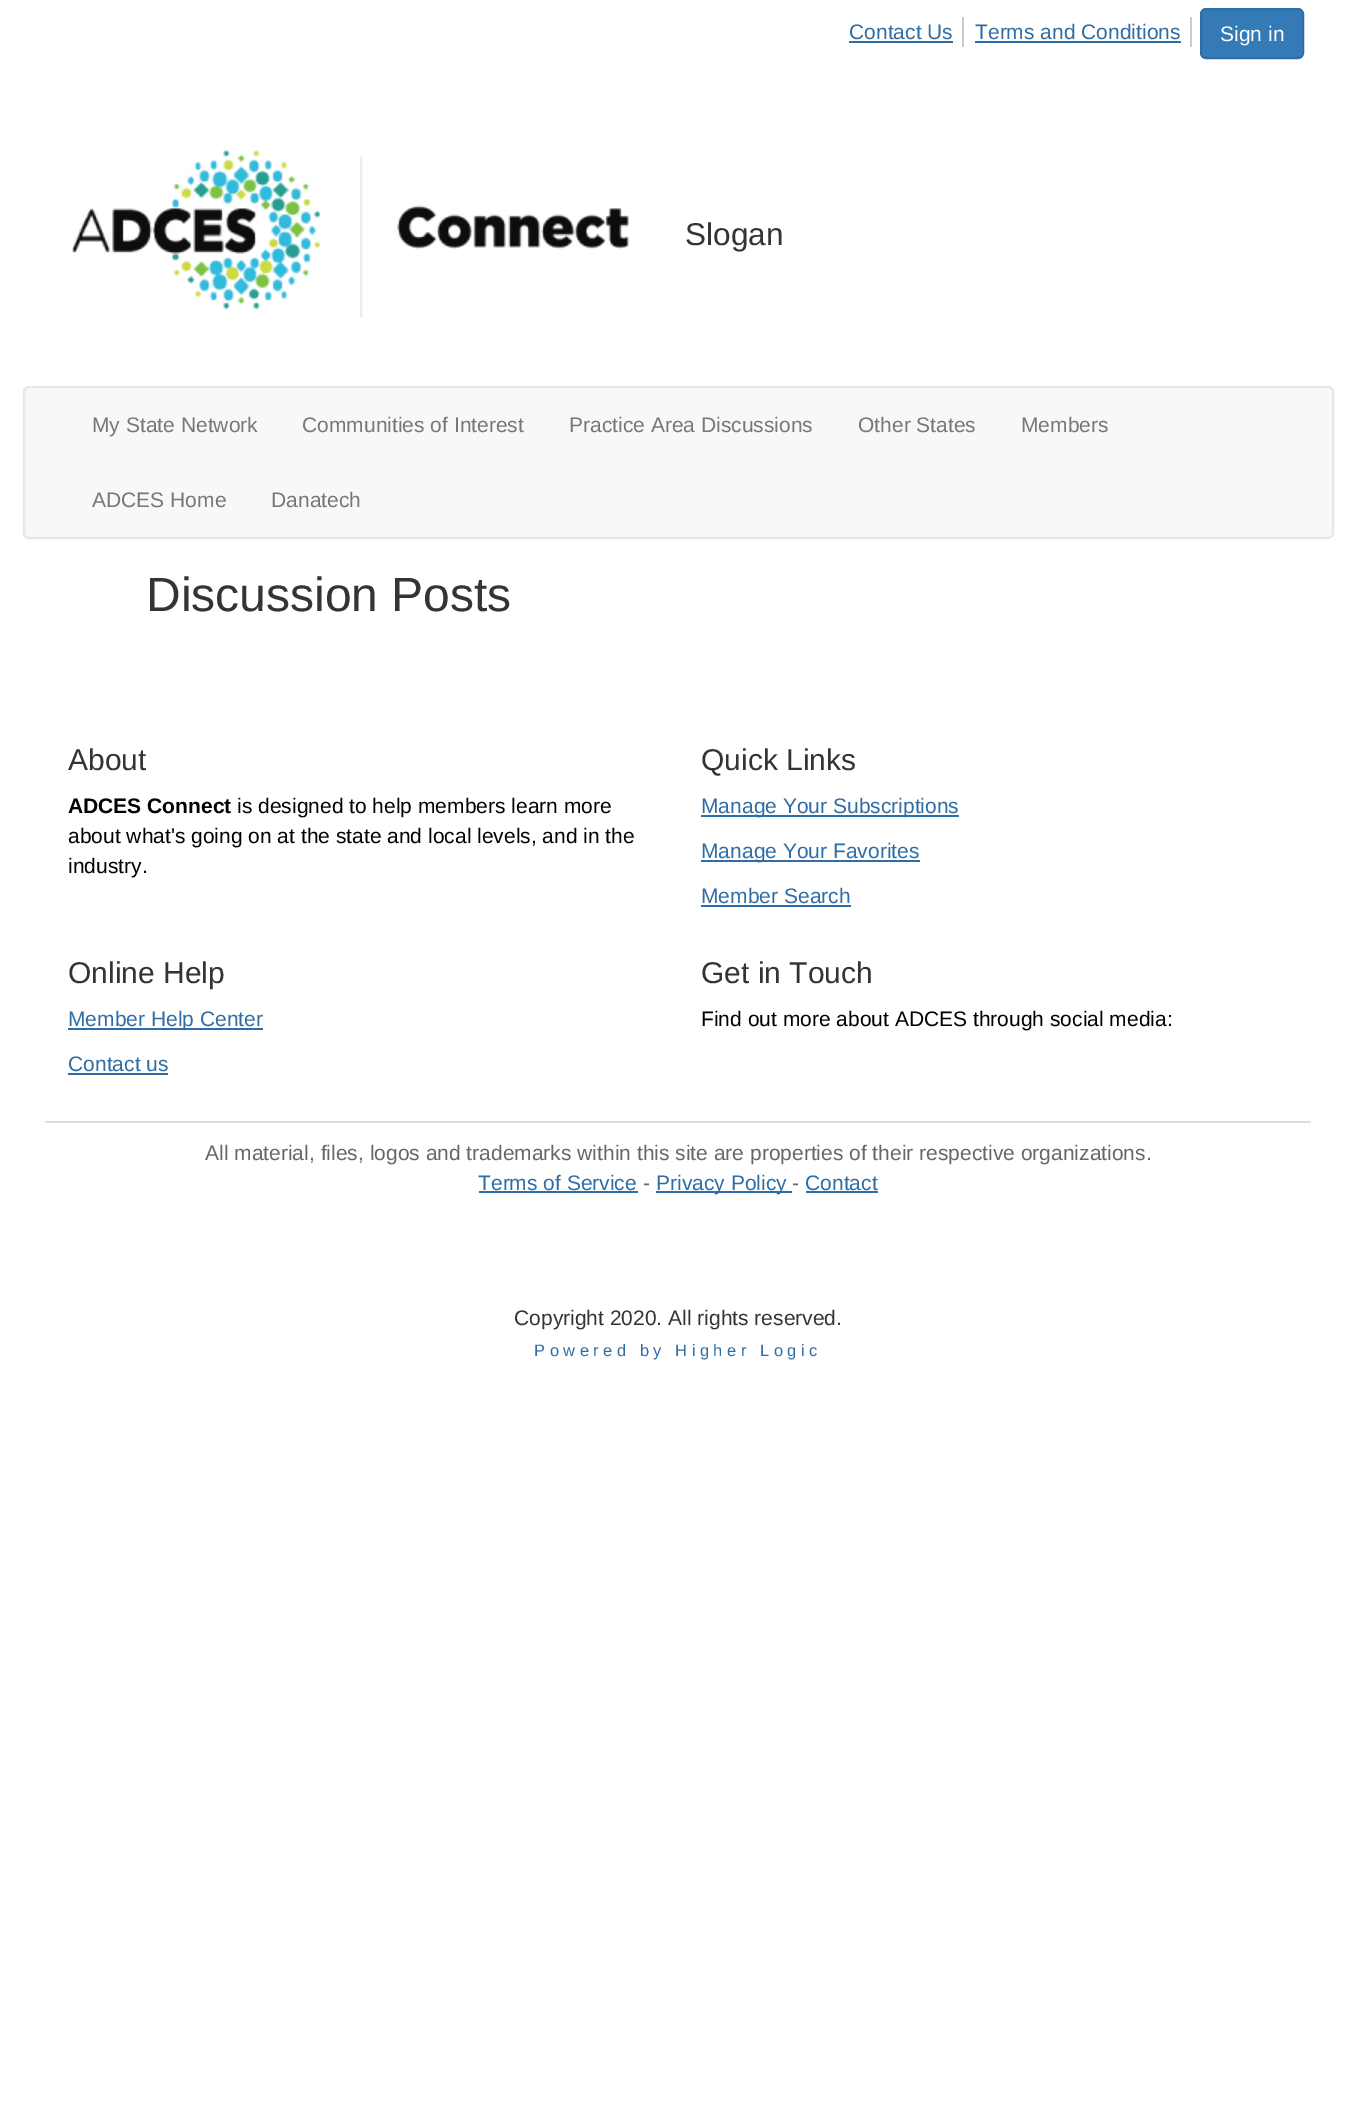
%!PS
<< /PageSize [1356 2109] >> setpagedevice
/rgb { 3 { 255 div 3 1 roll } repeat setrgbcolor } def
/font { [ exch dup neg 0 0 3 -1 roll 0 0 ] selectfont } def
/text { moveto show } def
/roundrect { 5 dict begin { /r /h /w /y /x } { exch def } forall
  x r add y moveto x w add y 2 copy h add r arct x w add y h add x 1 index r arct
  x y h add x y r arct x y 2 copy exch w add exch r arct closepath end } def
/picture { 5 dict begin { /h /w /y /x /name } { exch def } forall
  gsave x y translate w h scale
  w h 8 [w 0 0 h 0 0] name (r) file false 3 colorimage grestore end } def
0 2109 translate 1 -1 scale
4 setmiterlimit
255 255 255 rgb
0 0 1356 2109 rectfill
204 204 204 rgb
962 17 2 30 rectfill
47 109 164 rgb
849 41 104 2 rectfill
204 204 204 rgb
1190 17 2 30 rectfill
47 109 164 rgb
975 41 206 2 rectfill
52 122 183 rgb
1201 9 102 49 5 roundrect gsave fill grestore
47 109 164 rgb
2 setlinewidth
stroke
(img_01.rgb) 71 149 558 169 picture
248 248 248 rgb
24 387 1309 151 5 roundrect gsave fill grestore
231 231 231 rgb
stroke
47 109 164 rgb
701 815 258 2 rectfill
701 860 219 2 rectfill
701 905 150 2 rectfill
68 1028 195 2 rectfill
68 1073 100 2 rectfill
221 221 221 rgb
45 1121 1266 2 rectfill
47 109 164 rgb
479 1191 159 2 rectfill
656 1191 136 2 rectfill
806 1191 72 2 rectfill
/LiberationSans-Regular 21 font
(Contact Us) 849 39 text
(Terms and Conditions) 975 39 text
255 255 255 rgb
(Sign in) 1220 41 text
/LiberationSans-Regular 31.5 font
52 52 52 rgb
(Slogan) 685 245 text
/LiberationSans-Regular 21 font
119 119 119 rgb
(My State Network) 92 432 text
(Communities of Interest) 302 432 text
(Practice Area Discussions) 569 432 text
(Other States) 858 432 text
(Members) 1021 432 text
(ADCES Home) 92 507 text
(Danatech) 271 507 text
/LiberationSans-Regular 48 font
52 52 52 rgb
(Discussion Posts) 146 611 text
/LiberationSans-Regular 30 font
(About) 68 770 text
/LiberationSans-Bold 21 font
1 1 1 rgb
(ADCES Connect) 68 813 text
/LiberationSans-Regular 21 font
(is designed to help members learn more) 237 813 text
(about what's going on at the state and local levels, and in the) 68 843 text
(industry.) 68 873 text
/LiberationSans-Regular 30 font
52 52 52 rgb
(Quick Links) 701 770 text
/LiberationSans-Regular 21 font
47 109 164 rgb
(Manage Your Subscriptions) 701 813 text
(Manage Your Favorites) 701 858 text
(Member Search) 701 903 text
/LiberationSans-Regular 30 font
52 52 52 rgb
(Online Help) 68 983 text
/LiberationSans-Regular 21 font
47 109 164 rgb
(Member Help Center) 68 1026 text
(Contact us) 68 1071 text
/LiberationSans-Regular 30 font
52 52 52 rgb
(Get in Touch) 701 983 text
/LiberationSans-Regular 21 font
1 1 1 rgb
(Find out more about ADCES through social media:) 701 1026 text
103 103 103 rgb
(All material, files, logos and trademarks within this site are properties of their respective organizations.) 205 1160 text
47 109 164 rgb
(Terms of Service) 478 1190 text
103 103 103 rgb
(-) 643 1190 text
47 109 164 rgb
(Privacy Policy) 656 1190 text
103 103 103 rgb
(-) 792 1190 text
47 109 164 rgb
(Contact) 805 1190 text
52 52 52 rgb
(Copyright 2020. All rights reserved.) 514 1325 text
/LiberationSans-Regular 16.5 font
47 109 164 rgb
534 1356 moveto 4.5 0 (Powered by Higher Logic) ashow
showpage
